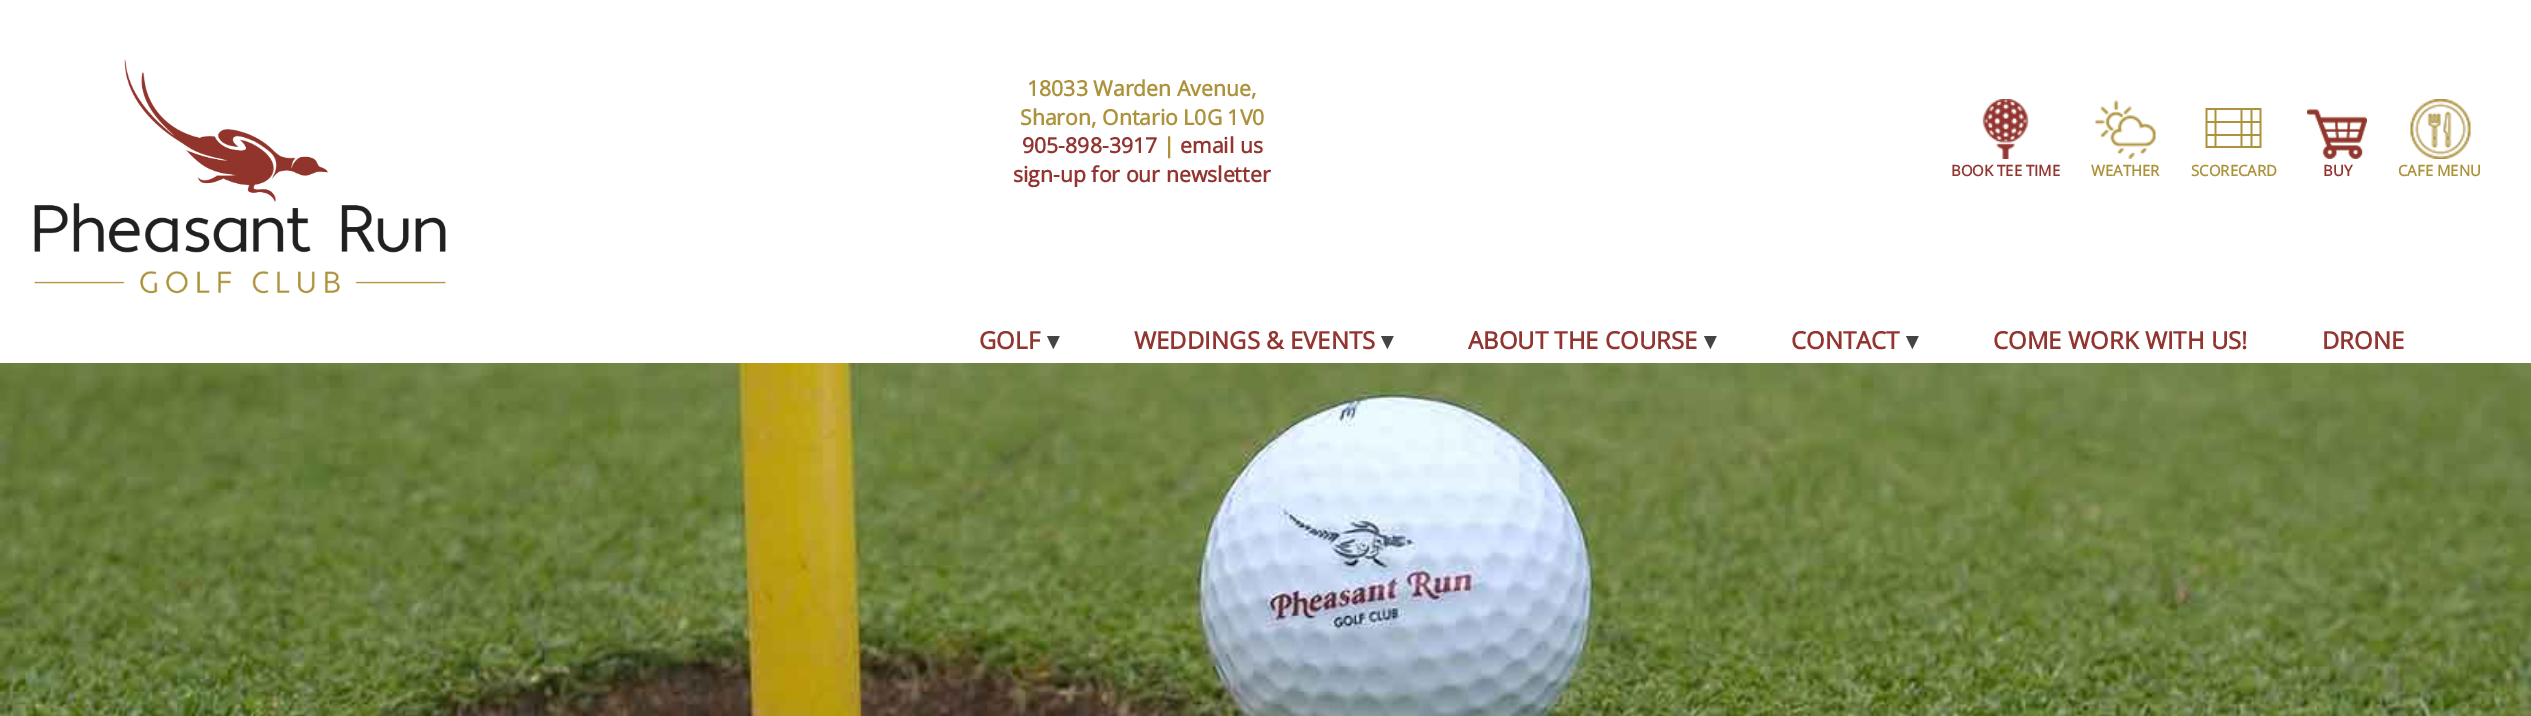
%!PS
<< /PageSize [2531 716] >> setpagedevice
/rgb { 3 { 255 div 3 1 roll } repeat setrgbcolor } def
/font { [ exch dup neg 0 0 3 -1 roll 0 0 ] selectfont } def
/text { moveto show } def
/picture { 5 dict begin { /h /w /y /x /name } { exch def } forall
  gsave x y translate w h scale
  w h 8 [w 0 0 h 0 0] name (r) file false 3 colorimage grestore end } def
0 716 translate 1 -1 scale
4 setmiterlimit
255 255 255 rgb
0 0 2531 716 rectfill
(img_01.rgb) 34 59 412 235 picture
(img_02.rgb) 1982 99 47 60 picture
(img_03.rgb) 2095 100 61 59 picture
(img_04.rgb) 2205 108 57 40 picture
(img_05.rgb) 2307 109 60 50 picture
(img_06.rgb) 2410 99 61 60 picture
(img_07.rgb) 0 363 2531 353 picture
/OpenSans-Bold 21.25 font
173 146 60 rgb
(18033 Warden Avenue,) 1027 96 text
(Sharon, Ontario L0G 1V0) 1020 125 text
146 52 47 rgb
(905-898-3917) 1022 153 text
173 146 60 rgb
(|) 1163 153 text
146 52 47 rgb
(email us) 1180 153 text
(sign-up for our newsletter) 1013 182 text
/OpenSans-Bold 15 font
(BOOK TEE TIME) 1951 176 text
173 146 60 rgb
(WEATHER) 2091 176 text
(SCORECARD) 2191 176 text
146 52 47 rgb
(BUY) 2323 176 text
173 146 60 rgb
(CAFE MENU) 2398 176 text
/OpenSans-Bold 24 font
146 52 47 rgb
(GOLF) 979 349 text
/DejaVuSans-Bold 24 font
68 68 68 rgb
(▾) 1047 349 text
/OpenSans-Bold 24 font
146 52 47 rgb
(WEDDINGS & EVENTS) 1134 349 text
/DejaVuSans-Bold 24 font
68 68 68 rgb
(▾) 1381 349 text
/OpenSans-Bold 24 font
146 52 47 rgb
(ABOUT THE COURSE) 1468 349 text
/DejaVuSans-Bold 24 font
68 68 68 rgb
(▾) 1704 349 text
/OpenSans-Bold 24 font
146 52 47 rgb
(CONTACT) 1791 349 text
/DejaVuSans-Bold 24 font
68 68 68 rgb
(▾) 1906 349 text
/OpenSans-Bold 24 font
146 52 47 rgb
(COME WORK WITH US!) 1993 349 text
(DRONE) 2322 349 text
showpage
